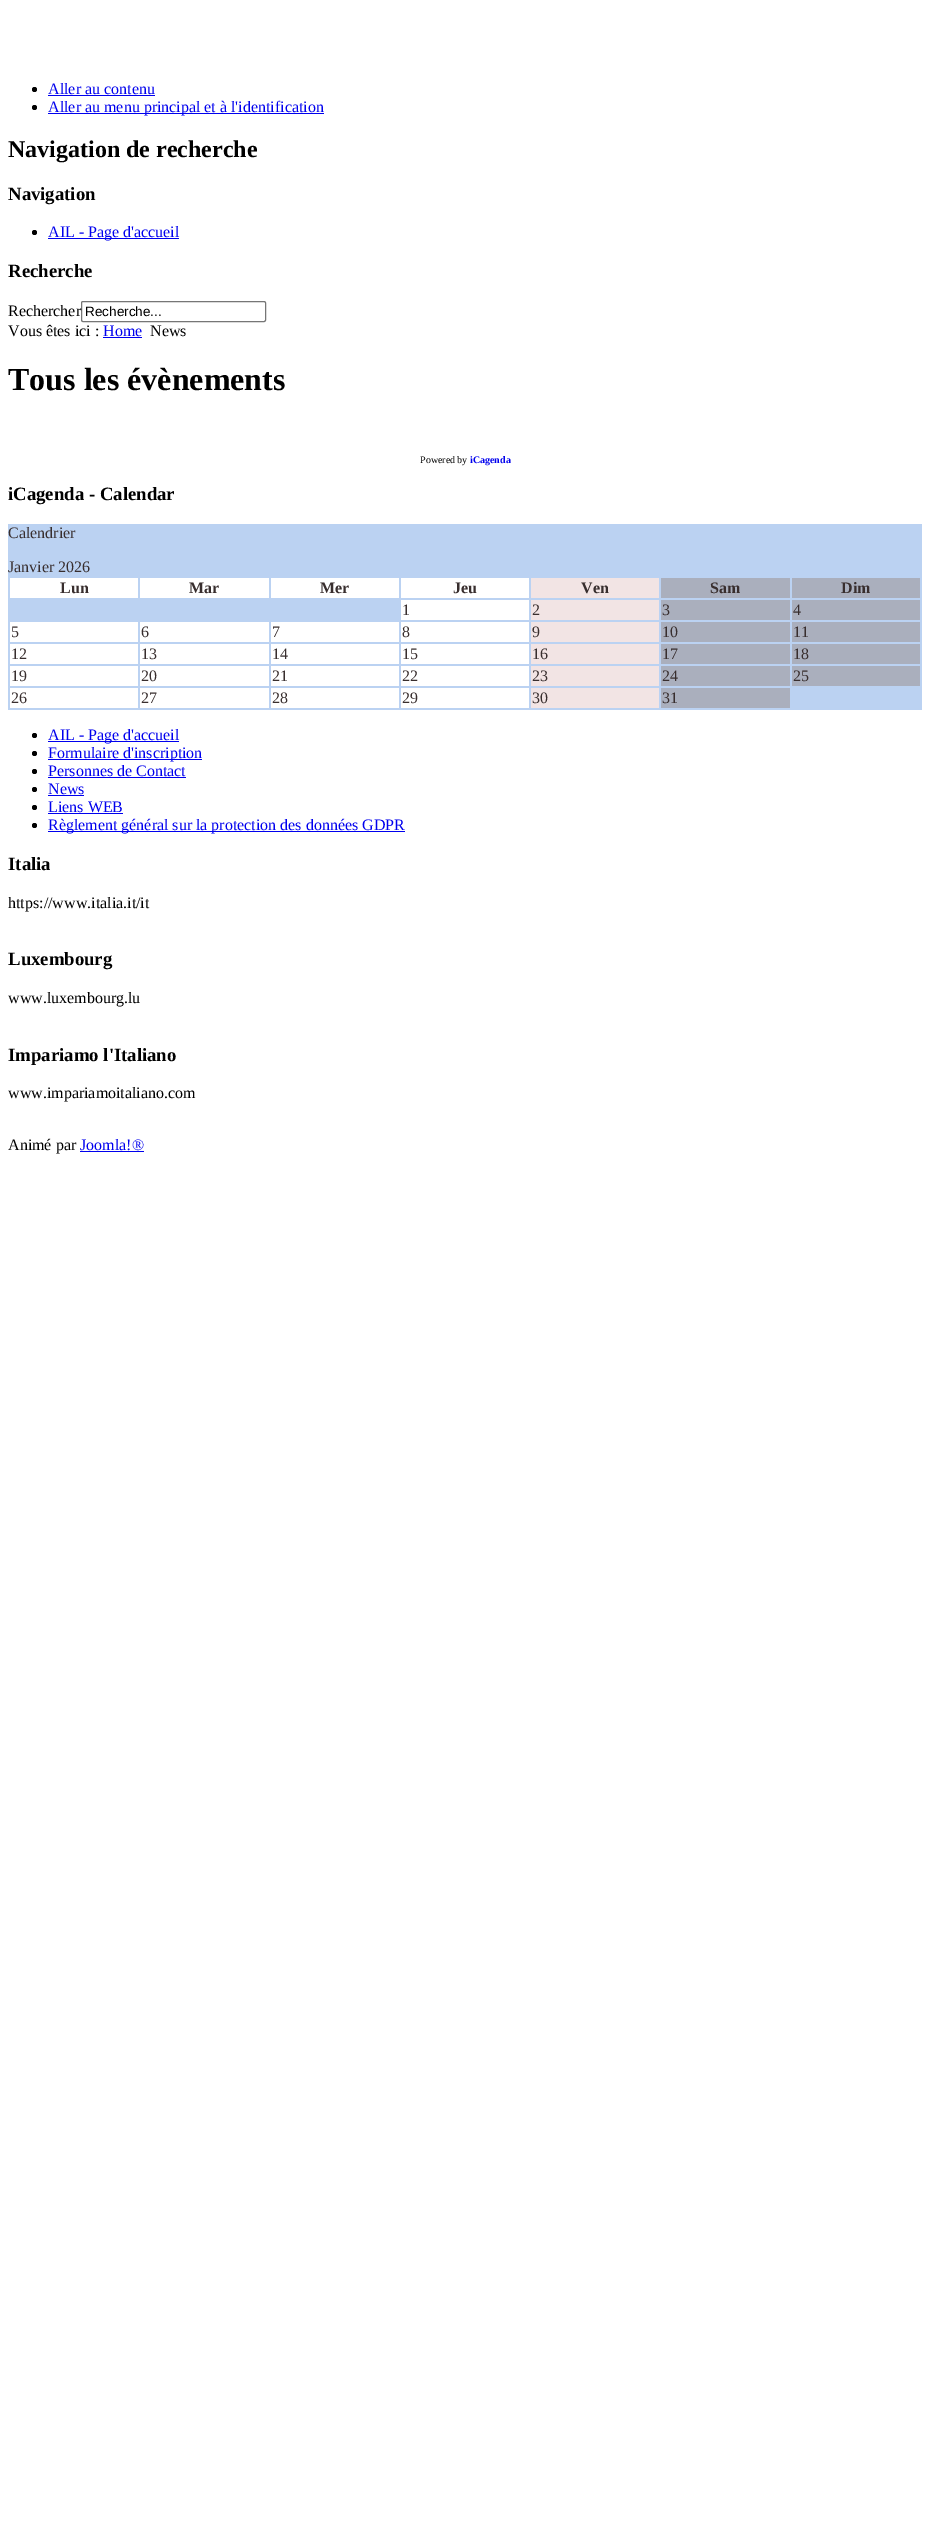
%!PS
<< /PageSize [930 2542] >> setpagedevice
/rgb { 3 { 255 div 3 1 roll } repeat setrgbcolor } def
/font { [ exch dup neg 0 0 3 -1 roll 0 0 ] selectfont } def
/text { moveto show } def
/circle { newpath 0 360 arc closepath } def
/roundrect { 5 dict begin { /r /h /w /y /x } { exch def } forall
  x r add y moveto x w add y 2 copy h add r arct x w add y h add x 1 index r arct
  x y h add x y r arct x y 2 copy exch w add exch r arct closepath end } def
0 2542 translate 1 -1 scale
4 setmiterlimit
255 255 255 rgb
0 0 930 2542 rectfill
0 0 0 rgb
34.5 89.5 2.5 circle fill
0 0 238 rgb
48 95 107 1 rectfill
0 0 0 rgb
34.5 107.5 2.5 circle fill
0 0 238 rgb
48 113 276 1 rectfill
0 0 0 rgb
34.5 232.5 2.5 circle fill
0 0 238 rgb
48 238 131 1 rectfill
118 118 118 rgb
81.5 301.5 184 20 1.5 roundrect stroke
0 0 238 rgb
103 337 39 1 rectfill
187 210 242 rgb
8 524 914 186 rectfill
255 255 255 rgb
10 578 128 20 rectfill
140 578 129 20 rectfill
271 578 128 20 rectfill
401 578 128 20 rectfill
242 228 228 rgb
531 578 128 20 rectfill
170 175 189 rgb
661 578 129 20 rectfill
792 578 128 20 rectfill
255 255 255 rgb
401 600 128 20 rectfill
242 228 228 rgb
531 600 128 20 rectfill
170 175 189 rgb
661 600 129 20 rectfill
792 600 128 20 rectfill
255 255 255 rgb
10 622 128 20 rectfill
140 622 129 20 rectfill
271 622 128 20 rectfill
401 622 128 20 rectfill
242 228 228 rgb
531 622 128 20 rectfill
170 175 189 rgb
661 622 129 20 rectfill
792 622 128 20 rectfill
255 255 255 rgb
10 644 128 20 rectfill
140 644 129 20 rectfill
271 644 128 20 rectfill
401 644 128 20 rectfill
242 228 228 rgb
531 644 128 20 rectfill
170 175 189 rgb
661 644 129 20 rectfill
792 644 128 20 rectfill
255 255 255 rgb
10 666 128 20 rectfill
140 666 129 20 rectfill
271 666 128 20 rectfill
401 666 128 20 rectfill
242 228 228 rgb
531 666 128 20 rectfill
170 175 189 rgb
661 666 129 20 rectfill
792 666 128 20 rectfill
255 255 255 rgb
10 688 128 20 rectfill
140 688 129 20 rectfill
271 688 128 20 rectfill
401 688 128 20 rectfill
242 228 228 rgb
531 688 128 20 rectfill
170 175 189 rgb
661 688 129 20 rectfill
0 0 0 rgb
34.5 735.5 2.5 circle fill
0 0 238 rgb
48 741 131 1 rectfill
0 0 0 rgb
34.5 753.5 2.5 circle fill
0 0 238 rgb
48 759 154 1 rectfill
0 0 0 rgb
34.5 771.5 2.5 circle fill
0 0 238 rgb
48 777 138 1 rectfill
0 0 0 rgb
34.5 789.5 2.5 circle fill
0 0 238 rgb
48 795 36 1 rectfill
0 0 0 rgb
34.5 807.5 2.5 circle fill
0 0 238 rgb
48 813 75 1 rectfill
0 0 0 rgb
34.5 825.5 2.5 circle fill
0 0 238 rgb
48 831 357 1 rectfill
80 1151 64 1 rectfill
/LiberationSerif-Regular 16 font
(Aller au contenu) 48 94 text
(Aller au menu principal et à l'identification) 48 112 text
/LiberationSerif-Bold 24 font
0 0 0 rgb
(Navigation de recherche) 8 157 text
/LiberationSerif-Bold 18.75 font
(Navigation) 8 200 text
/LiberationSerif-Regular 16 font
0 0 238 rgb
(AIL - Page d'accueil) 48 237 text
/LiberationSerif-Bold 18.75 font
0 0 0 rgb
(Recherche) 8 277 text
/LiberationSerif-Regular 16 font
(Rechercher) 8 316 text
/LiberationSans-Regular 13.5 font
(Recherche...) 85 316 text
/LiberationSerif-Regular 16 font
(Vous êtes ici :) 8 336 text
0 0 238 rgb
(Home) 103 336 text
0 0 0 rgb
(News) 150 336 text
/LiberationSerif-Bold 32 font
(Tous les évènements) 8 390 text
/LiberationSerif-Regular 10 font
(Powered by) 420 463 text
/LiberationSerif-Bold 10 font
0 0 238 rgb
(iCagenda) 470 463 text
/LiberationSerif-Bold 18.75 font
0 0 0 rgb
(iCagenda - Calendar) 8 500 text
/LiberationSerif-Regular 16 font
56 46 46 rgb
(Calendrier) 8 538 text
(Janvier 2026) 8 572 text
/LiberationSerif-Bold 16 font
(Lun) 60 593 text
(Mar) 189 593 text
(Mer) 320 593 text
(Jeu) 453 593 text
(Ven) 581 593 text
(Sam) 710 593 text
(Dim) 841 593 text
/LiberationSerif-Regular 16 font
(1) 402 615 text
(2) 532 615 text
(3) 662 615 text
(4) 793 615 text
(5) 11 637 text
(6) 141 637 text
(7) 272 637 text
(8) 402 637 text
(9) 532 637 text
(10) 662 637 text
(11) 793 637 text
(12) 11 659 text
(13) 141 659 text
(14) 272 659 text
(15) 402 659 text
(16) 532 659 text
(17) 662 659 text
(18) 793 659 text
(19) 11 681 text
(20) 141 681 text
(21) 272 681 text
(22) 402 681 text
(23) 532 681 text
(24) 662 681 text
(25) 793 681 text
(26) 11 703 text
(27) 141 703 text
(28) 272 703 text
(29) 402 703 text
(30) 532 703 text
(31) 662 703 text
0 0 238 rgb
(AIL - Page d'accueil) 48 740 text
(Formulaire d'inscription) 48 758 text
(Personnes de Contact) 48 776 text
(News) 48 794 text
(Liens WEB) 48 812 text
(Règlement général sur la protection des données GDPR) 48 830 text
/LiberationSerif-Bold 18.75 font
0 0 0 rgb
(Italia) 8 870 text
/LiberationSerif-Regular 16 font
(https://www.italia.it/it) 8 908 text
/LiberationSerif-Bold 18.75 font
(Luxembourg) 8 965 text
/LiberationSerif-Regular 16 font
(www.luxembourg.lu) 8 1003 text
/LiberationSerif-Bold 18.75 font
(Impariamo l'Italiano) 8 1061 text
/LiberationSerif-Regular 16 font
(www.impariamoitaliano.com) 8 1098 text
(Animé par) 8 1150 text
0 0 238 rgb
(Joomla!®) 80 1150 text
showpage
